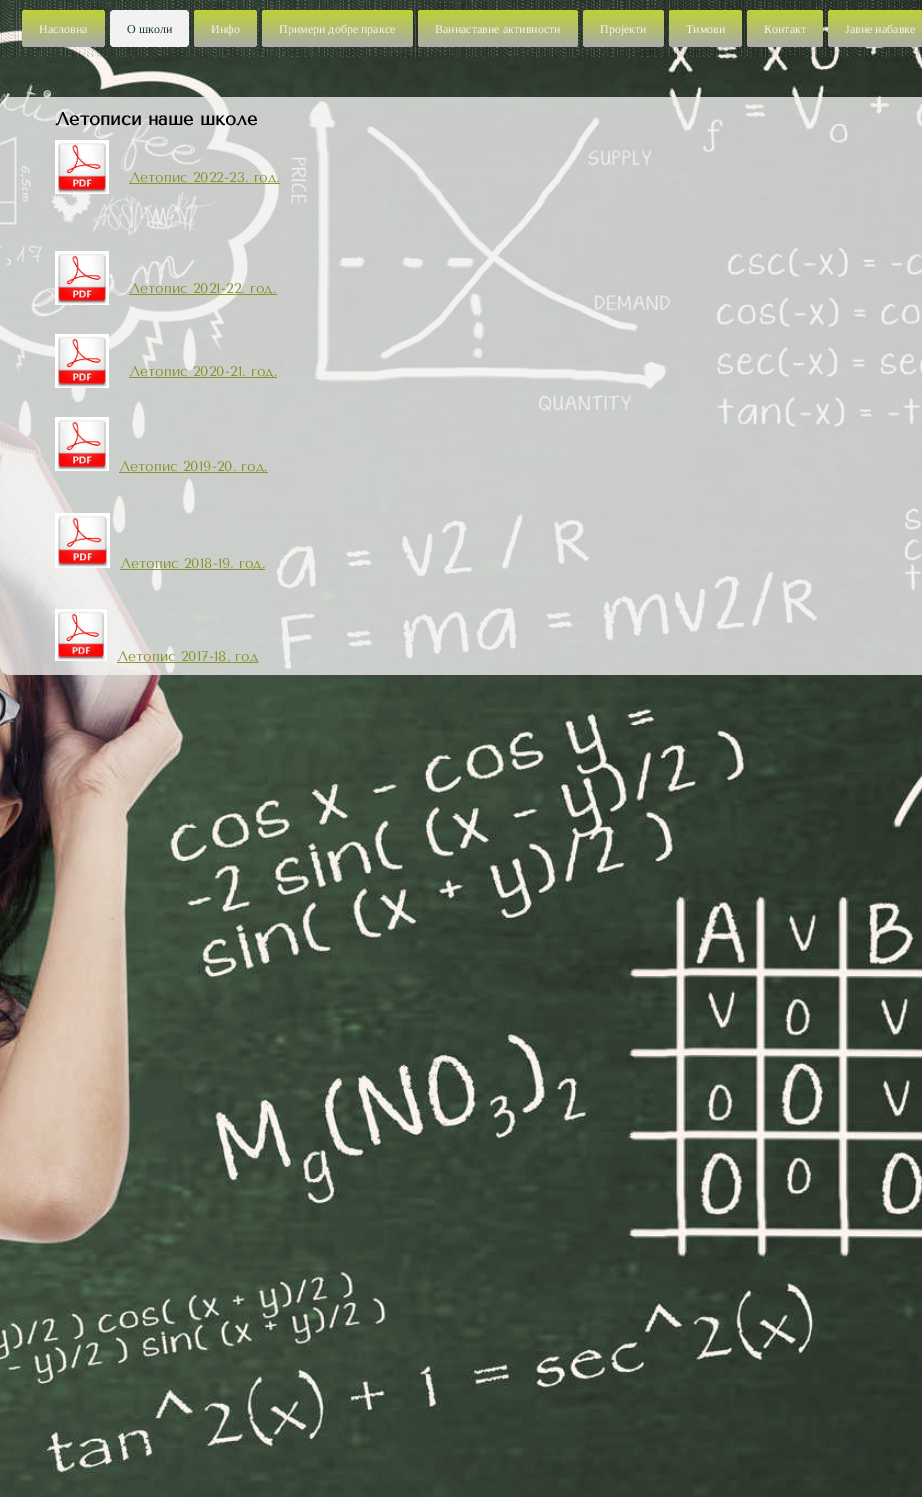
%!PS
<< /PageSize [922 1497] /PageUsesTransparency true >> setpagedevice
/rgb { 3 { 255 div 3 1 roll } repeat setrgbcolor } def
/font { [ exch dup neg 0 0 3 -1 roll 0 0 ] selectfont } def
/text { moveto show } def
/alpha { dup .setfillconstantalpha .setstrokeconstantalpha } def
/roundrect { 5 dict begin { /r /h /w /y /x } { exch def } forall
  x r add y moveto x w add y 2 copy h add r arct x w add y h add x 1 index r arct
  x y h add x y r arct x y 2 copy exch w add exch r arct closepath end } def
/picture { 5 dict begin { /h /w /y /x /name } { exch def } forall
  gsave x y translate w h scale
  w h 8 [w 0 0 h 0 0] name (r) file false 3 colorimage grestore end } def
0 .pushpdf14devicefilter
0 1497 translate 1 -1 scale
4 setmiterlimit
255 255 255 rgb
0 0 922 1497 rectfill
(img_01.rgb) 0 0 922 1497 picture
(img_02.rgb) 0 0 922 57 picture
gsave 22 10 83 37 4 roundrect clip newpath
<< /ShadingType 2 /ColorSpace /DeviceRGB /Coords [64 47 64 10] /Extend [true true] /Function << /FunctionType 2 /Domain [0 1] /C0 [0.671 0.671 0.671] /C1 [0.745 0.82 0.208] /N 1 >> >> shfill grestore
242 242 242 rgb
110 10 79 37 4 roundrect fill
gsave 194 10 63 37 4 roundrect clip newpath
<< /ShadingType 2 /ColorSpace /DeviceRGB /Coords [226 47 226 10] /Extend [true true] /Function << /FunctionType 2 /Domain [0 1] /C0 [0.671 0.671 0.671] /C1 [0.745 0.82 0.208] /N 1 >> >> shfill grestore
gsave 262 10 151 37 4 roundrect clip newpath
<< /ShadingType 2 /ColorSpace /DeviceRGB /Coords [338 47 338 10] /Extend [true true] /Function << /FunctionType 2 /Domain [0 1] /C0 [0.671 0.671 0.671] /C1 [0.745 0.82 0.208] /N 1 >> >> shfill grestore
gsave 418 10 160 37 4 roundrect clip newpath
<< /ShadingType 2 /ColorSpace /DeviceRGB /Coords [498 47 498 10] /Extend [true true] /Function << /FunctionType 2 /Domain [0 1] /C0 [0.671 0.671 0.671] /C1 [0.745 0.82 0.208] /N 1 >> >> shfill grestore
gsave 583 10 81 37 4 roundrect clip newpath
<< /ShadingType 2 /ColorSpace /DeviceRGB /Coords [624 47 624 10] /Extend [true true] /Function << /FunctionType 2 /Domain [0 1] /C0 [0.671 0.671 0.671] /C1 [0.745 0.82 0.208] /N 1 >> >> shfill grestore
gsave 669 10 73 37 4 roundrect clip newpath
<< /ShadingType 2 /ColorSpace /DeviceRGB /Coords [706 47 706 10] /Extend [true true] /Function << /FunctionType 2 /Domain [0 1] /C0 [0.671 0.671 0.671] /C1 [0.745 0.82 0.208] /N 1 >> >> shfill grestore
gsave 747 10 76 37 4 roundrect clip newpath
<< /ShadingType 2 /ColorSpace /DeviceRGB /Coords [785 47 785 10] /Extend [true true] /Function << /FunctionType 2 /Domain [0 1] /C0 [0.671 0.671 0.671] /C1 [0.745 0.82 0.208] /N 1 >> >> shfill grestore
gsave 828 10 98 37 4 roundrect clip newpath
<< /ShadingType 2 /ColorSpace /DeviceRGB /Coords [881 47 881 10] /Extend [true true] /Function << /FunctionType 2 /Domain [0 1] /C0 [0.671 0.671 0.671] /C1 [0.745 0.82 0.208] /N 1 >> >> shfill grestore
0.79 alpha
0 97 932 578 10 roundrect fill
1 alpha
(img_03.rgb) 55 140 54 54 picture
136 148 49 rgb
129 183 151 1 rectfill
(img_03.rgb) 55 251 54 54 picture
129 294 148 1 rectfill
(img_03.rgb) 55 334 54 54 picture
129 377 148 1 rectfill
(img_03.rgb) 55 417 54 54 picture
119 472 149 1 rectfill
(img_04.rgb) 55 513 55 55 picture
120 569 145 1 rectfill
(img_05.rgb) 55 609 52 52 picture
117 662 141 1 rectfill
/LiberationSerif-Regular 12 font
242 242 242 rgb
(Насловна) 39 33 text
33 56 64 rgb
(О школи) 127 33 text
242 242 242 rgb
(Инфо) 211 33 text
(Примери добре праксе) 279 33 text
(Ваннаставне активности) 435 33 text
(Пројекти) 600 33 text
(Тимови) 686 33 text
(Контакт) 764 33 text
(Јавне набавке) 845 33 text
/TenorSans-Bold 18 font
0 0 0 rgb
(Летописи наше школе) 55 125 text
/TenorSans-Regular 14 font
136 148 49 rgb
(Летопис 2022-23. год.) 129 182 text
(Летопис 2021-22. год.) 129 293 text
(Летопис 2020-21. год.) 129 376 text
(Летопис 2019-20. год.) 119 471 text
(Летопис 2018-19. год.) 120 568 text
(Летопис 2017-18. год) 117 661 text
.poppdf14devicefilter showpage
